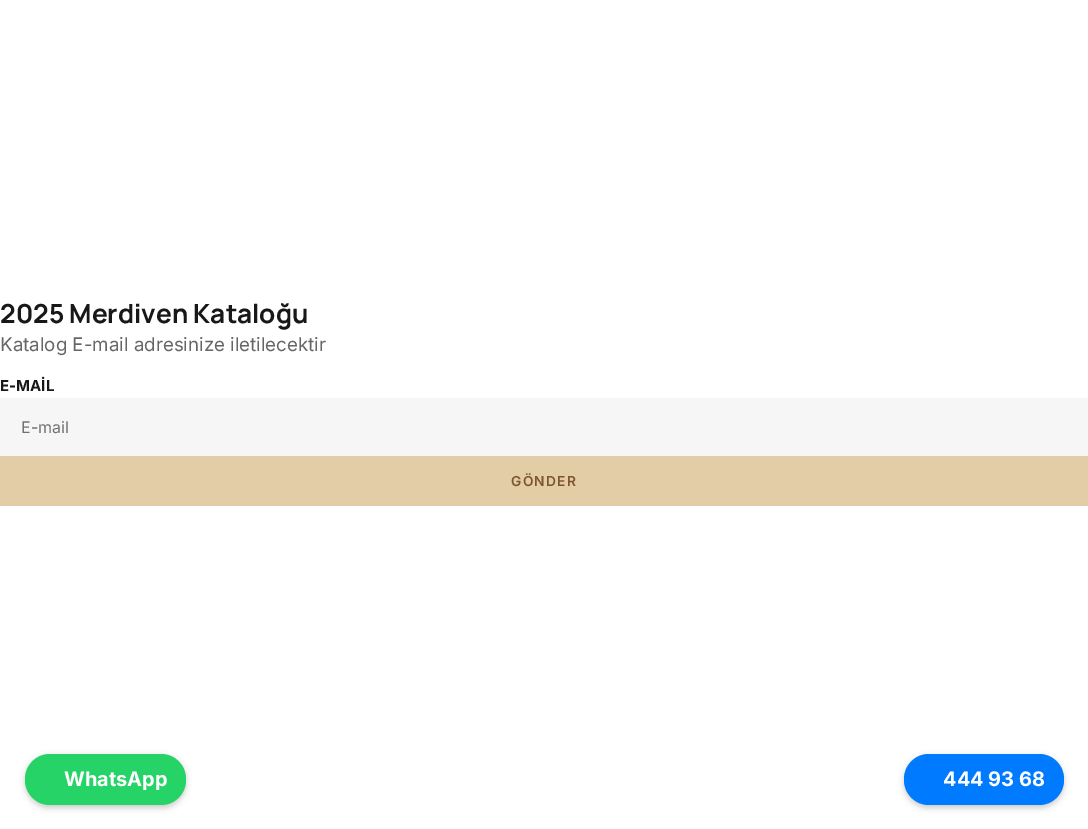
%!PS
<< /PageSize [1088 829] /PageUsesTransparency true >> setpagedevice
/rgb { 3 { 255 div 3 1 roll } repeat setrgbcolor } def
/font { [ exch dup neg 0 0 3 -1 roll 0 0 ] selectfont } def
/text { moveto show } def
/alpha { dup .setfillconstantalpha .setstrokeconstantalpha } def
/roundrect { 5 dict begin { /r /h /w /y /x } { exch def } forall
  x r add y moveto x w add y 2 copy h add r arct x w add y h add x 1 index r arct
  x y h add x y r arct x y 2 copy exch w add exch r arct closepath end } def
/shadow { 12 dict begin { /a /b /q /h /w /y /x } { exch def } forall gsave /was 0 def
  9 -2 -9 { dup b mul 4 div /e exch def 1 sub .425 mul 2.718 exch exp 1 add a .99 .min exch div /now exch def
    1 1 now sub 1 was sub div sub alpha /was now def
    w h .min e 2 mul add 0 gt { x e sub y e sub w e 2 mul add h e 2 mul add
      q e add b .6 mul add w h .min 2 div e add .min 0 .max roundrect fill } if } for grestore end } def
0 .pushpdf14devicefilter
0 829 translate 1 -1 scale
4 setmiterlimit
255 255 255 rgb
0 0 1088 829 rectfill
246 246 246 rgb
0 398 1088 58 rectfill
226 205 167 rgb
0 456 1088 50 rectfill
0 0 0 rgb
25 756 161 52 25 3 0.2 shadow
37 211 102 rgb
25 754 161 51 25 roundrect fill
0 0 0 rgb
904 756 160 52 25 3 0.2 shadow
0 123 255 rgb
904 754 160 51 25 roundrect fill
/Manrope-Bold 26.25 font
24 24 24 rgb
(2025 Merdiven Kataloğu) 0 323 text
/Inter-Regular 18.75 font
102 102 102 rgb
(Katalog E-mail adresinize iletilecektir) 0 351 text
/Inter-Bold 15 font
24 24 24 rgb
(E-MAİL) 0 391 text
/Inter-Regular 16 font
113 113 113 rgb
(E-mail) 21 433 text
/Inter-SemiBold 13.75 font
125 86 49 rgb
511 486 moveto 1.25 0 (GÖNDER) ashow
/Inter-Bold 20 font
255 255 255 rgb
(WhatsApp) 64 786 text
(444 93 68) 943 786 text
.poppdf14devicefilter showpage
